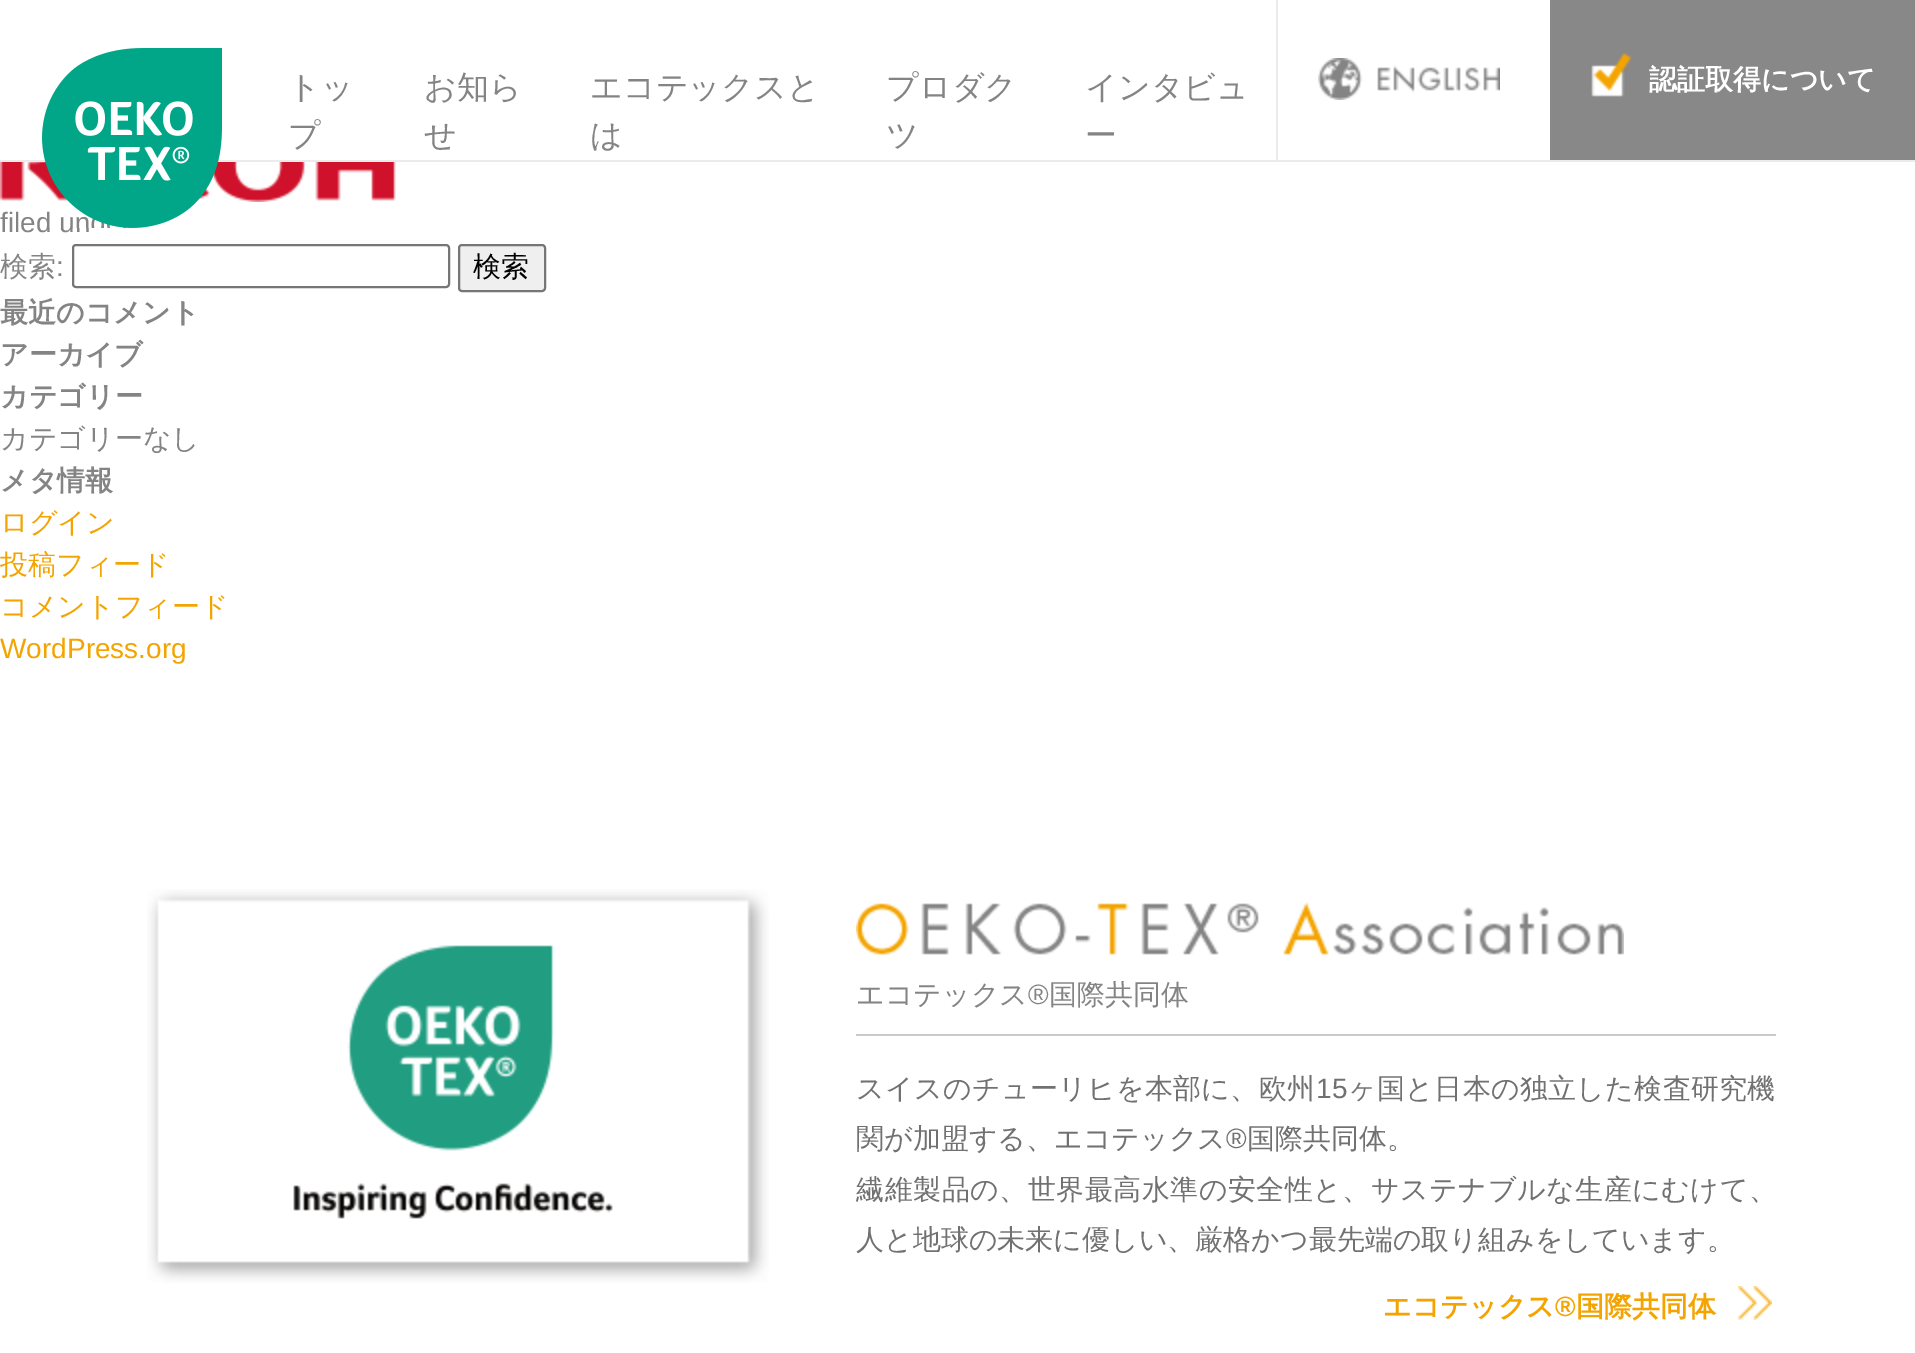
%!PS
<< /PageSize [1915 1353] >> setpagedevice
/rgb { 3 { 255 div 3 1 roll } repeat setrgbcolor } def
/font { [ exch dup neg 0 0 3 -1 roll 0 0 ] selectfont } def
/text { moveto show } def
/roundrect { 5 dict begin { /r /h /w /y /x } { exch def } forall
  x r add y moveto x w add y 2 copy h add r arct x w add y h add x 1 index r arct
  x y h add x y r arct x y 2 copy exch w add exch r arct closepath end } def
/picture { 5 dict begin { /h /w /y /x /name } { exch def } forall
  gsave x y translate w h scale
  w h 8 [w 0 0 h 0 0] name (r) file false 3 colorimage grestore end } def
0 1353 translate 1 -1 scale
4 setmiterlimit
255 255 255 rgb
0 0 1915 1353 rectfill
235 235 236 rgb
0 160 1915 2 rectfill
1276 0 2 160 rectfill
(img_02.rgb) 1318 58 182 42 picture
136 136 136 rgb
1550 0 365 160 rectfill
(img_03.rgb) 1591 52 41 45 picture
(img_04.rgb) 0 162 396 40 picture
118 118 118 rgb
2 setlinewidth
73 245 376 42 3 roundrect stroke
239 239 239 rgb
459 245 86 46 3 roundrect gsave fill grestore
118 118 118 rgb
stroke
(img_05.rgb) 147 889 622 394 picture
202 202 202 rgb
856 1034 920 2 rectfill
(img_06.rgb) 856 902 768 53 picture
(img_07.rgb) 1738 1286 34 34 picture
/WenQuanYiZenHei-Medium 32 font
132 132 132 rgb
(トッ) 288 98 text
(プ) 288 146 text
(お知ら) 424 98 text
(せ) 424 146 text
(エコテックスと) 590 98 text
(は) 590 146 text
(プロダク) 886 98 text
(ツ) 886 146 text
(インタビュ) 1085 98 text
(ー) 1085 146 text
/WenQuanYiZenHei-Bold 28 font
255 255 255 rgb
(認証取得について) 1649 89 text
/LiberationSans-Regular 28 font
132 132 132 rgb
(filed un) 0 232 text
(img_01.rgb) 42 48 180 180 picture
/WenQuanYiZenHei-Medium 28 font
(検索) 0 276 text
/LiberationSans-Regular 28 font
(:) 56 276 text
/WenQuanYiZenHei-Medium 28 font
0 0 0 rgb
(検索) 473 276 text
/WenQuanYiZenHei-Bold 28 font
132 132 132 rgb
(最近のコメント) 0 322 text
(アーカイブ) 0 364 text
(カテゴリー) 0 406 text
/WenQuanYiZenHei-Medium 28 font
(カテゴリーなし) 0 448 text
/WenQuanYiZenHei-Bold 28 font
(メタ情報) 0 490 text
/WenQuanYiZenHei-Medium 28 font
244 164 0 rgb
(ログイン) 0 532 text
(投稿フィード) 0 574 text
(コメントフィード) 0 616 text
/LiberationSans-Regular 28 font
(WordPress.org) 0 658 text
/WenQuanYiZenHei-Medium 28 font
132 132 132 rgb
(エコテックス) 856 1004 text
/LiberationSans-Regular 28 font
(®) 1028 1004 text
/WenQuanYiZenHei-Medium 28 font
(国際共同体) 1049 1004 text
114 113 113 rgb
856 1098 moveto 0.3 0 (スイスのチューリヒを本部に、欧州) ashow
/LiberationSans-Regular 28 font
1316 1098 moveto 0.3 0 (15) ashow
/WenQuanYiZenHei-Medium 28 font
1348 1098 moveto 0.3 0 (ヶ国と日本の独立した検査研究機) ashow
(関が加盟する、エコテックス) 856 1148 text
/LiberationSans-Regular 28 font
(®) 1226 1148 text
/WenQuanYiZenHei-Medium 28 font
(国際共同体。) 1247 1148 text
856 1199 moveto 0.5 0 (繊維製品の、世界最高水準の安全性と、サステナブルな生産にむけて、) ashow
(人と地球の未来に優しい、厳格かつ最先端の取り組みをしています。) 856 1249 text
/WenQuanYiZenHei-Bold 28 font
244 164 0 rgb
(エコテックス) 1383 1316 text
/LiberationSans-Bold 28 font
(®) 1555 1316 text
/WenQuanYiZenHei-Bold 28 font
(国際共同体) 1576 1316 text
showpage
